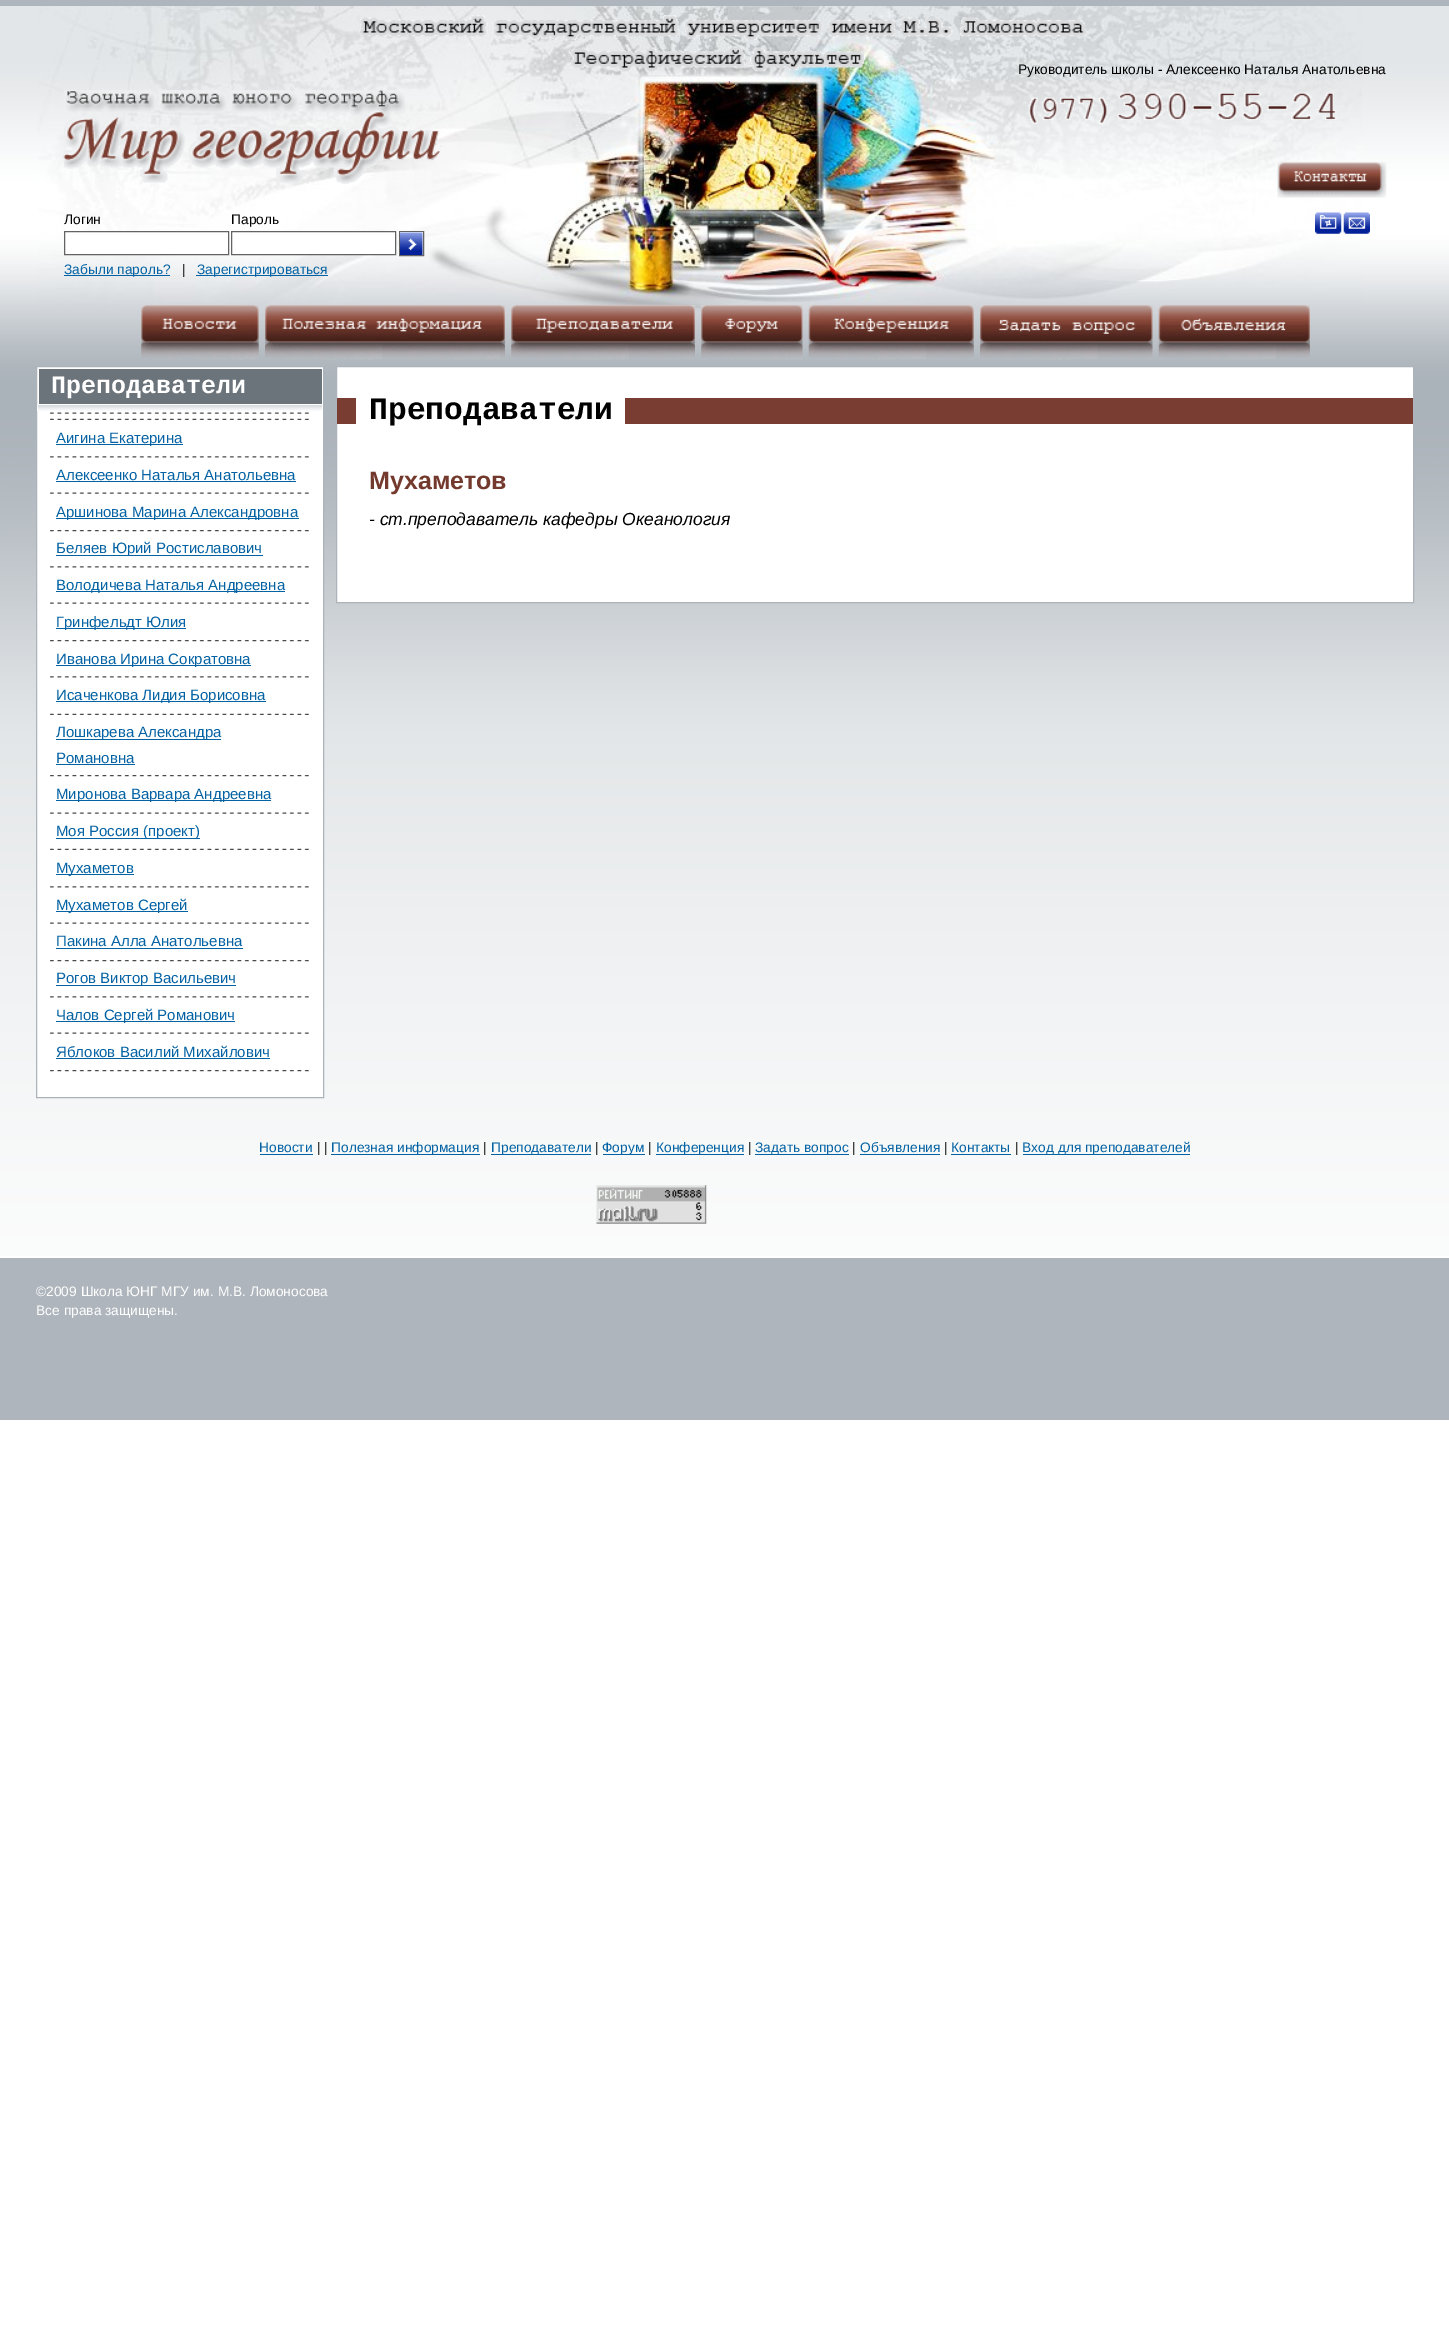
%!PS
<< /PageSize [1449 2330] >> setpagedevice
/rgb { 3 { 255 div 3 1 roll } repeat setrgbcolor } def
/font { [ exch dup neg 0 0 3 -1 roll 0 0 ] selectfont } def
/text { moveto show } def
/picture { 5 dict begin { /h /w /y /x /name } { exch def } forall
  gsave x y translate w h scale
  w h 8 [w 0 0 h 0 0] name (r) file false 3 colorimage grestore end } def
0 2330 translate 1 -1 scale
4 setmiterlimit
255 255 255 rgb
0 0 1449 2330 rectfill
(img_01.rgb) 0 6 1449 1250 picture
174 181 188 rgb
0 0 1449 6 rectfill
(img_02.rgb) 38 6 1324 305 picture
(img_03.rgb) 358 15 730 57 picture
(img_04.rgb) 1028 92 309 32 picture
(img_05.rgb) 63 90 379 94 picture
(img_06.rgb) 1277 162 110 36 picture
255 255 255 rgb
64.5 231.5 moveto 164 0 rlineto 0 23 rlineto -164 0 rlineto closepath gsave fill grestore
99 99 99 rgb
stroke
255 255 255 rgb
231.5 231.5 moveto 164 0 rlineto 0 23 rlineto -164 0 rlineto closepath gsave fill grestore
99 99 99 rgb
stroke
399.5 231.5 24 24 rectstroke
(img_07.rgb) 400 232 23 23 picture
2 98 163 rgb
64 275 106 1 rectfill
196 275 132 1 rectfill
(img_08.rgb) 1315 212 27 22 picture
(img_09.rgb) 1343 212 27 22 picture
(img_10.rgb) 141 305 118 55 picture
(img_11.rgb) 265 305 240 55 picture
(img_12.rgb) 511 305 184 55 picture
(img_13.rgb) 701 305 102 55 picture
(img_14.rgb) 808 305 166 55 picture
(img_15.rgb) 980 305 173 55 picture
(img_16.rgb) 1158 305 152 55 picture
255 255 255 rgb
36.5 366.5 moveto 287 0 rlineto 0 731 rlineto -287 0 rlineto closepath gsave fill grestore
172 179 186 rgb
stroke
108 116 123 rgb
39 369 283 35 rectfill
(img_17.rgb) 37 405 286 6 picture
(img_18.rgb) 50 412 259 2 picture
(img_19.rgb) 50 418 259 2 picture
2 98 163 rgb
56 444 127 1 rectfill
(img_20.rgb) 50 456 259 2 picture
56 481 240 1 rectfill
(img_18.rgb) 50 492 259 2 picture
56 518 243 1 rectfill
(img_21.rgb) 50 530 259 2 picture
56 555 207 1 rectfill
(img_20.rgb) 50 566 259 2 picture
56 591 229 1 rectfill
(img_18.rgb) 50 602 259 2 picture
56 628 130 1 rectfill
(img_21.rgb) 50 640 259 2 picture
56 665 195 1 rectfill
(img_20.rgb) 50 676 259 2 picture
56 701 210 1 rectfill
(img_19.rgb) 50 713 259 2 picture
56 739 165 1 rectfill
56 764 79 1 rectfill
(img_21.rgb) 50 775 259 2 picture
56 800 215 1 rectfill
(img_18.rgb) 50 812 259 2 picture
56 838 144 1 rectfill
(img_19.rgb) 50 848 259 2 picture
56 874 78 1 rectfill
(img_20.rgb) 50 886 259 2 picture
56 911 132 1 rectfill
(img_18.rgb) 50 922 259 2 picture
56 948 187 1 rectfill
(img_21.rgb) 50 960 259 2 picture
56 985 180 1 rectfill
(img_20.rgb) 50 996 259 2 picture
56 1021 179 1 rectfill
(img_18.rgb) 50 1032 259 2 picture
56 1058 214 1 rectfill
(img_21.rgb) 50 1070 259 2 picture
255 255 255 rgb
336.5 366.5 moveto 1077 0 rlineto 0 236 rlineto -1077 0 rlineto closepath gsave fill grestore
172 179 186 rgb
stroke
122 61 49 rgb
337 398 1076 26 rectfill
255 255 255 rgb
356 398 269 26 rectfill
2 98 163 rgb
260 1154 53 1 rectfill
331 1154 149 1 rectfill
491 1154 100 1 rectfill
603 1154 42 1 rectfill
656 1154 88 1 rectfill
755 1154 94 1 rectfill
860 1154 80 1 rectfill
951 1154 60 1 rectfill
1023 1154 167 1 rectfill
(img_22.rgb) 596 1185 111 39 picture
174 181 188 rgb
0 1258 1449 162 rectfill
/LiberationSans-Regular 13.75 font
0 0 0 rgb
(Руководитель школы - Алексеенко Наталья Анатольевна) 1018 74 text
(Логин) 64 224 text
(Пароль) 231 224 text
2 98 163 rgb
(Забыли пароль?) 64 274 text
0 0 0 rgb
(|) 182 274 text
2 98 163 rgb
(Зарегистрироваться) 197 274 text
/LiberationMono-Bold 25 font
255 255 255 rgb
(Преподаватели) 51 393 text
/LiberationSans-Regular 15 font
2 98 163 rgb
(Аигина Екатерина) 56 443 text
(Алексеенко Наталья Анатольевна) 56 480 text
(Аршинова Марина Александровна) 56 517 text
(Беляев Юрий Ростиславович) 56 553 text
(Володичева Наталья Андреевна) 56 590 text
(Гринфельдт Юлия) 56 627 text
(Иванова Ирина Сократовна) 56 664 text
(Исаченкова Лидия Борисовна) 56 700 text
(Лошкарева Александра) 56 737 text
(Романовна) 56 763 text
(Миронова Варвара Андреевна) 56 799 text
(Моя Россия \(проект\)) 56 836 text
(Мухаметов) 56 873 text
(Мухаметов Сергей) 56 910 text
(Пакина Алла Анатольевна) 56 946 text
(Рогов Виктор Васильевич) 56 983 text
(Чалов Сергей Романович) 56 1020 text
(Яблоков Василий Михайлович) 56 1057 text
/LiberationMono-Bold 31.25 font
0 0 0 rgb
(Преподаватели) 369 419 text
/LiberationSans-Bold 25 font
115 57 45 rgb
(Мухаметов) 369 489 text
/LiberationSans-Italic 17.5 font
0 0 0 rgb
(- ст.преподаватель кафедры Океанология) 369 525 text
/LiberationSans-Regular 13.75 font
2 98 163 rgb
(Новости) 259 1152 text
0 0 0 rgb
(| |) 317 1152 text
2 98 163 rgb
(Полезная информация) 331 1152 text
0 0 0 rgb
(|) 483 1152 text
2 98 163 rgb
(Преподаватели) 491 1152 text
0 0 0 rgb
(|) 595 1152 text
2 98 163 rgb
(Форум) 602 1152 text
0 0 0 rgb
(|) 648 1152 text
2 98 163 rgb
(Конференция) 656 1152 text
0 0 0 rgb
(|) 748 1152 text
2 98 163 rgb
(Задать вопрос) 755 1152 text
0 0 0 rgb
(|) 852 1152 text
2 98 163 rgb
(Объявления) 860 1152 text
0 0 0 rgb
(|) 944 1152 text
2 98 163 rgb
(Контакты) 951 1152 text
0 0 0 rgb
(|) 1015 1152 text
2 98 163 rgb
(Вход для преподавателей) 1022 1152 text
255 255 255 rgb
(©2009 Школа ЮНГ МГУ им. М.В. Ломоносова) 36 1296 text
(Все права защищены.) 36 1315 text
showpage
